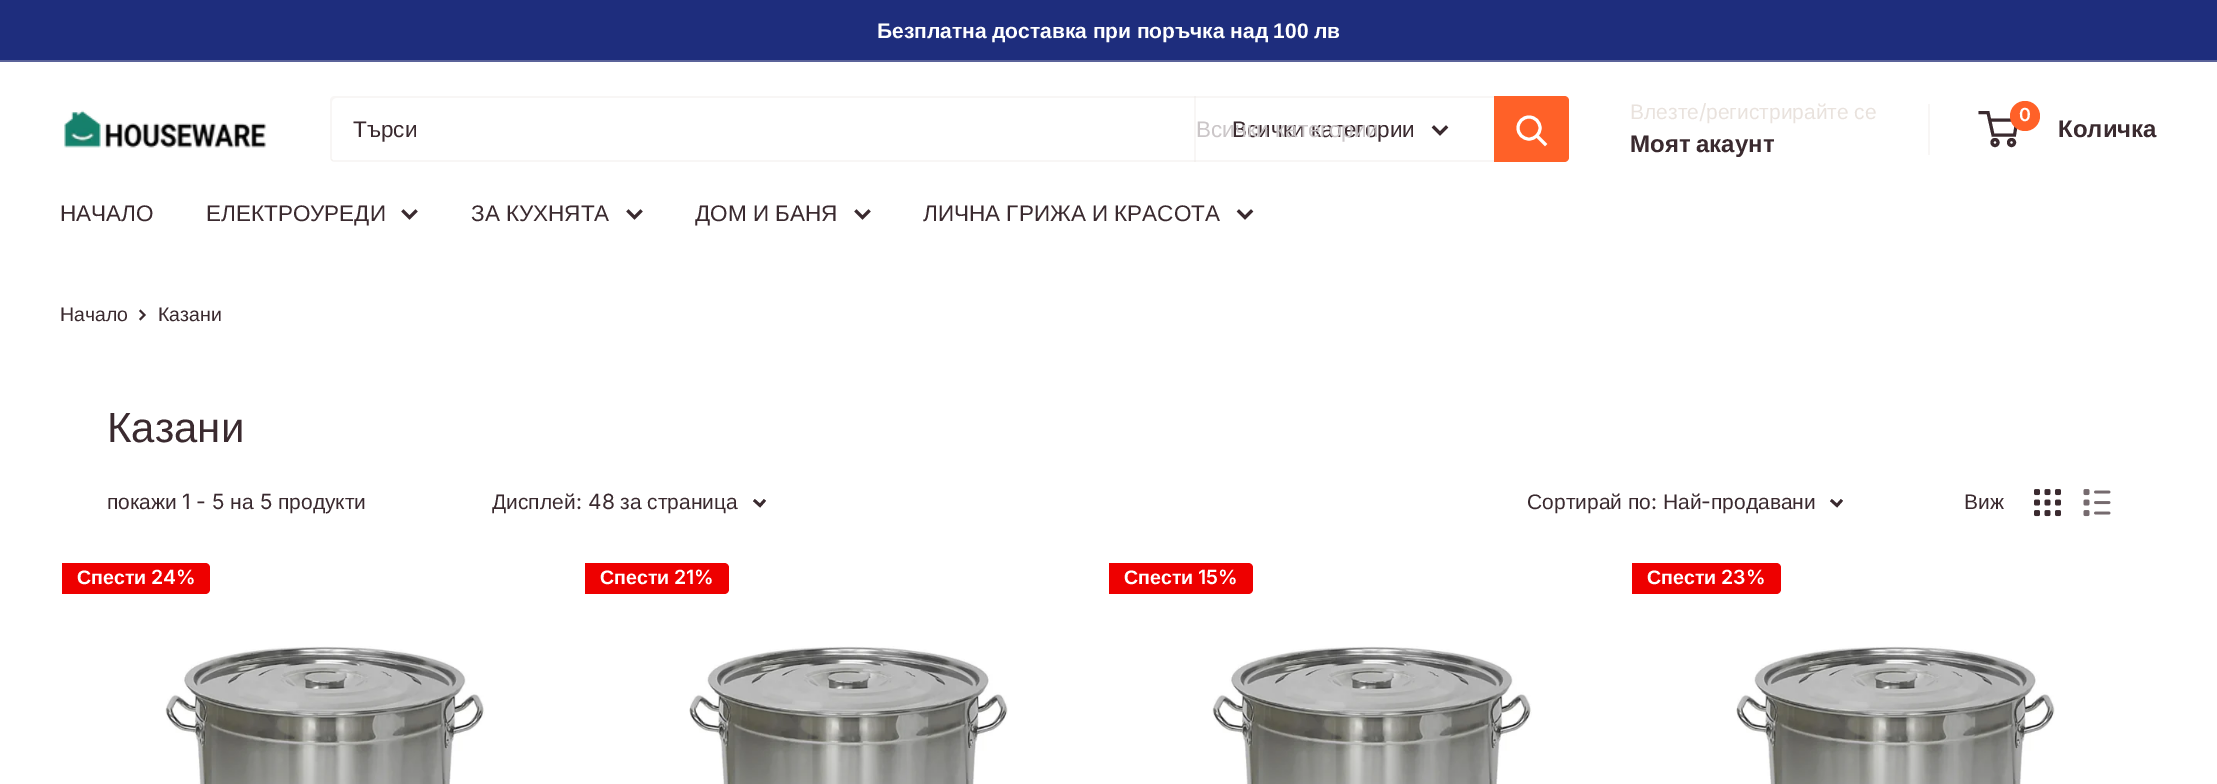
%!PS
<< /PageSize [2217 784] /PageUsesTransparency true >> setpagedevice
/rgb { 3 { 255 div 3 1 roll } repeat setrgbcolor } def
/font { [ exch dup neg 0 0 3 -1 roll 0 0 ] selectfont } def
/text { moveto show } def
/alpha { dup .setfillconstantalpha .setstrokeconstantalpha } def
/circle { newpath 0 360 arc closepath } def
/picture { 5 dict begin { /h /w /y /x /name } { exch def } forall
  gsave x y translate w h scale
  w h 8 [w 0 0 h 0 0] name (r) file false 3 colorimage grestore end } def
0 .pushpdf14devicefilter
0 784 translate 1 -1 scale
4 setmiterlimit
255 255 255 rgb
0 0 2217 784 rectfill
30 45 125 rgb
0 0 2217 60 rectfill
91 99 154 rgb
0 60 2217 2 rectfill
(img_01.rgb) 64 110 203 38 picture
248 246 245 rgb
331 159 moveto 0 2 2 3 4 3 rcurveto 1229 0 rlineto 3 0 5 -2 5 -5 rcurveto 0 -56 rlineto 0 -1 -1 -3 -1 -4 rcurveto 0 2 rlineto 0 57 rlineto 0 2 -3 4 -5 4 rcurveto -1230 0 rlineto closepath fill
0.3 alpha
233 226 221 rgb
336 98 moveto 1230 0 rlineto 3 1 rlineto -1 -2 -3 -3 -5 -3 rcurveto -1229 0 rlineto -3 0 -5 2 -5 5 rcurveto 0 56 rlineto 0 2 1 4 3 4 rcurveto -1 -2 rlineto 0 -57 rlineto 0 -2 2 -4 4 -4 rcurveto closepath fill
1194 96 2 66 rectfill
1 alpha
58 42 47 rgb
3 setlinewidth
2 setlinecap
1446 127.5 moveto -6 6 rlineto -6 -6 rlineto stroke
255 97 40 rgb
1494 96 moveto 70 0 rlineto 3 0 5 2 5 5 rcurveto 0 56 rlineto 0 3 -2 5 -5 5 rcurveto -70 0 rlineto closepath fill
255 255 255 rgb
1545 144 moveto -7.5 -7.5 rlineto stroke
0 setlinecap
1529 128 11 circle stroke
248 246 245 rgb
1928 104 2 51 rectfill
58 42 47 rgb
1995 142.5 3 circle stroke
2011.5 142.5 3 circle stroke
1989.5 120 moveto 27.5 0 rlineto -2.5 15 rlineto -21.5 0 rlineto -5 -22.5 rlineto -9.5 0 rlineto stroke
255 97 40 rgb
2025 116 15 circle fill
58 42 47 rgb
2 setlinecap
415.5 211.5 moveto -6 6 rlineto -6 -6 rlineto stroke
640.5 211.5 moveto -6 6 rlineto -6 -6 rlineto stroke
868.5 211.5 moveto -6 6 rlineto -6 -6 rlineto stroke
1251 211.5 moveto -6 6 rlineto -6 -6 rlineto stroke
2 setlinewidth
140.5 311 moveto 4 4 rlineto -4 4 rlineto stroke
2.8 setlinewidth
764 501 moveto -4 4.5 rlineto -5 -4.5 rlineto stroke
1841 501 moveto -4 4.5 rlineto -5 -4.5 rlineto stroke
(img_02.rgb) 2034 489 27 28 picture
(img_03.rgb) 2083 489 28 28 picture
238 0 0 rgb
62 563 moveto 143 0 rlineto 3 0 5 2 5 5 rcurveto 0 21 rlineto 0 3 -2 5 -5 5 rcurveto -143 0 rlineto closepath fill
(img_04.rgb) 165 646 320 138 picture
585 563 moveto 139 0 rlineto 3 0 5 2 5 5 rcurveto 0 21 rlineto 0 3 -2 5 -5 5 rcurveto -139 0 rlineto closepath fill
(img_05.rgb) 689 646 319 138 picture
1109 563 moveto 139 0 rlineto 3 0 5 2 5 5 rcurveto 0 21 rlineto 0 3 -2 5 -5 5 rcurveto -139 0 rlineto closepath fill
(img_04.rgb) 1212 646 320 138 picture
1632 563 moveto 144 0 rlineto 3 0 5 2 5 5 rcurveto 0 21 rlineto 0 3 -2 5 -5 5 rcurveto -144 0 rlineto closepath fill
(img_05.rgb) 1736 646 319 138 picture
/LiberationSans-Bold 21 font
255 255 255 rgb
877 38 moveto -0.25 0 32 (Безплатна доставка при поръчка над 100 лв) widthshow
/LiberationSans-Regular 22.5 font
58 42 47 rgb
(Търси) 353 137 text
(Всички категории) 1232 137 text
203 198 200 rgb
(Всички категории) 1196 137 text
/LiberationSans-Regular 21 font
233 226 221 rgb
(Влезте) 1630 119 text
/Inter-Regular 21 font
(/) 1699 119 text
/LiberationSans-Regular 21 font
(регистрирайте се) 1706 119 text
/LiberationSans-Bold 24 font
58 42 47 rgb
1630 152 moveto -1 0 32 (Моят акаунт) widthshow
/Inter-SemiBold 18 font
255 255 255 rgb
(0) 2019 121 text
/LiberationSans-Bold 24 font
58 42 47 rgb
(Количка) 2058 137 text
/LiberationSans-Regular 22.5 font
(НАЧАЛО) 60 221 text
(ЕЛЕКТРОУРЕДИ) 206 221 text
(ЗА КУХНЯТА) 471 221 text
(ДОМ И БАНЯ) 695 221 text
(ЛИЧНА ГРИЖА И КРАСОТА) 923 221 text
/LiberationSans-Regular 19.5 font
(Начало) 60 321 text
(Казани) 158 321 text
/LiberationSans-Regular 42 font
(Казани) 107 442 text
/LiberationSans-Regular 21 font
(покажи) 107 509 text
/Inter-Regular 21 font
(1 - 5) 182 509 text
/LiberationSans-Regular 21 font
(на) 230 509 text
/Inter-Regular 21 font
(5) 260 509 text
/LiberationSans-Regular 21 font
(продукти) 278 509 text
(Дисплей) 492 509 text
/Inter-Regular 21 font
(: 48) 576 509 text
/LiberationSans-Regular 21 font
(за страница) 620 509 text
(Сортирай по) 1527 509 text
/Inter-Regular 21 font
(:) 1651 509 text
/LiberationSans-Regular 21 font
(Най) 1663 509 text
/Inter-Regular 21 font
(-) 1701 509 text
/LiberationSans-Regular 21 font
(продавани) 1711 509 text
(Виж) 1964 509 text
/LiberationSans-Bold 19.5 font
255 255 255 rgb
(Спести) 77 584 text
/Inter-SemiBold 19.5 font
(24%) 151 584 text
/LiberationSans-Bold 19.5 font
(Спести) 600 584 text
/Inter-SemiBold 19.5 font
(21%) 674 584 text
/LiberationSans-Bold 19.5 font
(Спести) 1124 584 text
/Inter-SemiBold 19.5 font
(15%) 1198 584 text
/LiberationSans-Bold 19.5 font
(Спести) 1647 584 text
/Inter-SemiBold 19.5 font
(23%) 1721 584 text
.poppdf14devicefilter showpage
